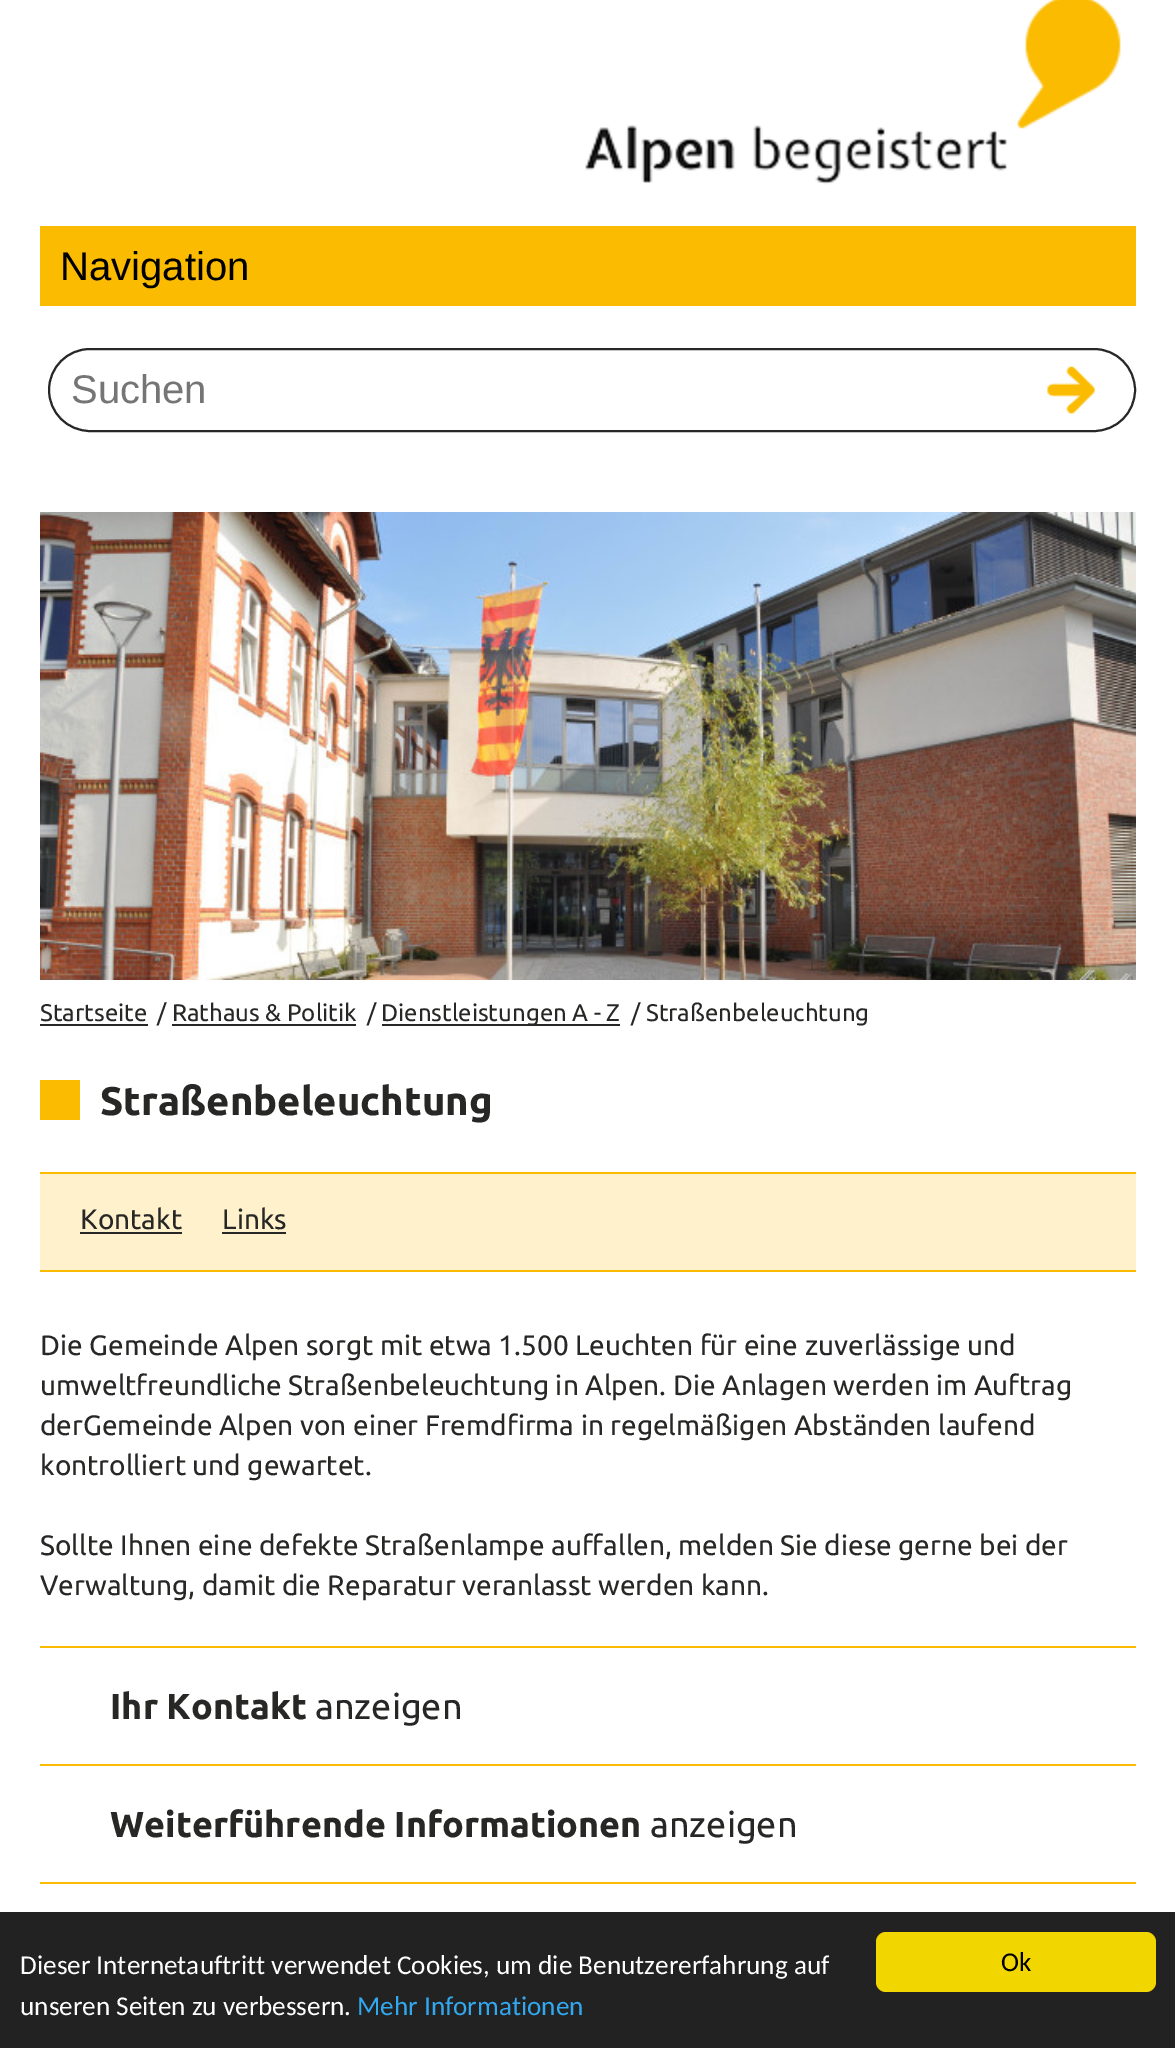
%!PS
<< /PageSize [1175 2048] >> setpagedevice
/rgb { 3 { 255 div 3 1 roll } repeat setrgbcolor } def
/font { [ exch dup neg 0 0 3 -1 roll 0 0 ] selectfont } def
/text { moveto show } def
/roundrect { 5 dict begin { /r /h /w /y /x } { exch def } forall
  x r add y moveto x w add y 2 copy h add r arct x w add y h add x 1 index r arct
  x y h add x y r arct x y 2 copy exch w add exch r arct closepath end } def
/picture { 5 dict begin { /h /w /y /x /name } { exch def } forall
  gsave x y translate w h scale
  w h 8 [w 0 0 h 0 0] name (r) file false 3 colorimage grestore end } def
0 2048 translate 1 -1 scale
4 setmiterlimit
255 255 255 rgb
0 0 1175 2048 rectfill
(img_01.rgb) 585 0 536 185 picture
250 187 0 rgb
40 226 1096 80 rectfill
39 39 38 rgb
2 setlinewidth
49 349 1086 82 41 roundrect stroke
(img_02.rgb) 1047 366 48 48 picture
(img_03.rgb) 40 512 1096 468 picture
40 1024 108 2 rectfill
172 1024 184 2 rectfill
382 1024 238 2 rectfill
250 187 0 rgb
40 1172 1096 2 rectfill
40 1080 40 40 rectfill
254 241 204 rgb
40 1174 1096 96 rectfill
250 187 0 rgb
40 1270 1096 2 rectfill
39 39 38 rgb
80 1232 102 2 rectfill
222 1232 64 2 rectfill
250 187 0 rgb
40 1646 1096 2 rectfill
40 1764 1096 2 rectfill
40 1882 1096 2 rectfill
34 34 34 rgb
0 1912 1175 136 rectfill
241 214 0 rgb
876 1932 280 60 10 roundrect fill
/LiberationSans-Regular 40 font
0 0 0 rgb
(Navigation) 60 280 text
117 117 117 rgb
(Suchen) 71 403 text
/Ubuntu-Regular 24 font
39 39 38 rgb
(Startseite) 40 1021 text
(/ Rathaus & Politik) 157 1021 text
(/) 367 1021 text
(Dienstleistungen A - Z) 381 1021 text
(/ Straßenbeleuchtung) 631 1021 text
/Ubuntu-Bold 40 font
(Straßenbeleuchtung) 100 1115 text
/Ubuntu-Regular 28 font
(Kontakt) 80 1229 text
(Links) 222 1229 text
(Die Gemeinde Alpen sorgt mit etwa 1.500 Leuchten für eine zuverlässige und) 40 1355 text
(umweltfreundliche Straßenbeleuchtung in Alpen. Die Anlagen werden im Auftrag) 40 1395 text
(derGemeinde Alpen von einer Fremdfirma in regelmäßigen Abständen laufend) 40 1435 text
(kontrolliert und gewartet.) 40 1475 text
(Sollte Ihnen eine defekte Straßenlampe auffallen, melden Sie diese gerne bei der) 40 1555 text
(Verwaltung, damit die Reparatur veranlasst werden kann.) 40 1595 text
/Ubuntu-Bold 36 font
(Ihr Kontakt) 110 1719 text
/Ubuntu-Regular 36 font
(anzeigen) 315 1719 text
/Ubuntu-Bold 36 font
(Weiterführende Informationen) 110 1837 text
/Ubuntu-Regular 36 font
(anzeigen) 650 1837 text
/Carlito-Regular 27.2 font
255 255 255 rgb
(Dieser Internetauftritt verwendet Cookies, um die Benutzererfahrung auf) 20 1974 text
(unseren Seiten zu verbessern.) 20 2015 text
49 168 240 rgb
(Mehr Informationen) 357 2015 text
0 0 0 rgb
(Ok) 1001 1971 text
showpage
